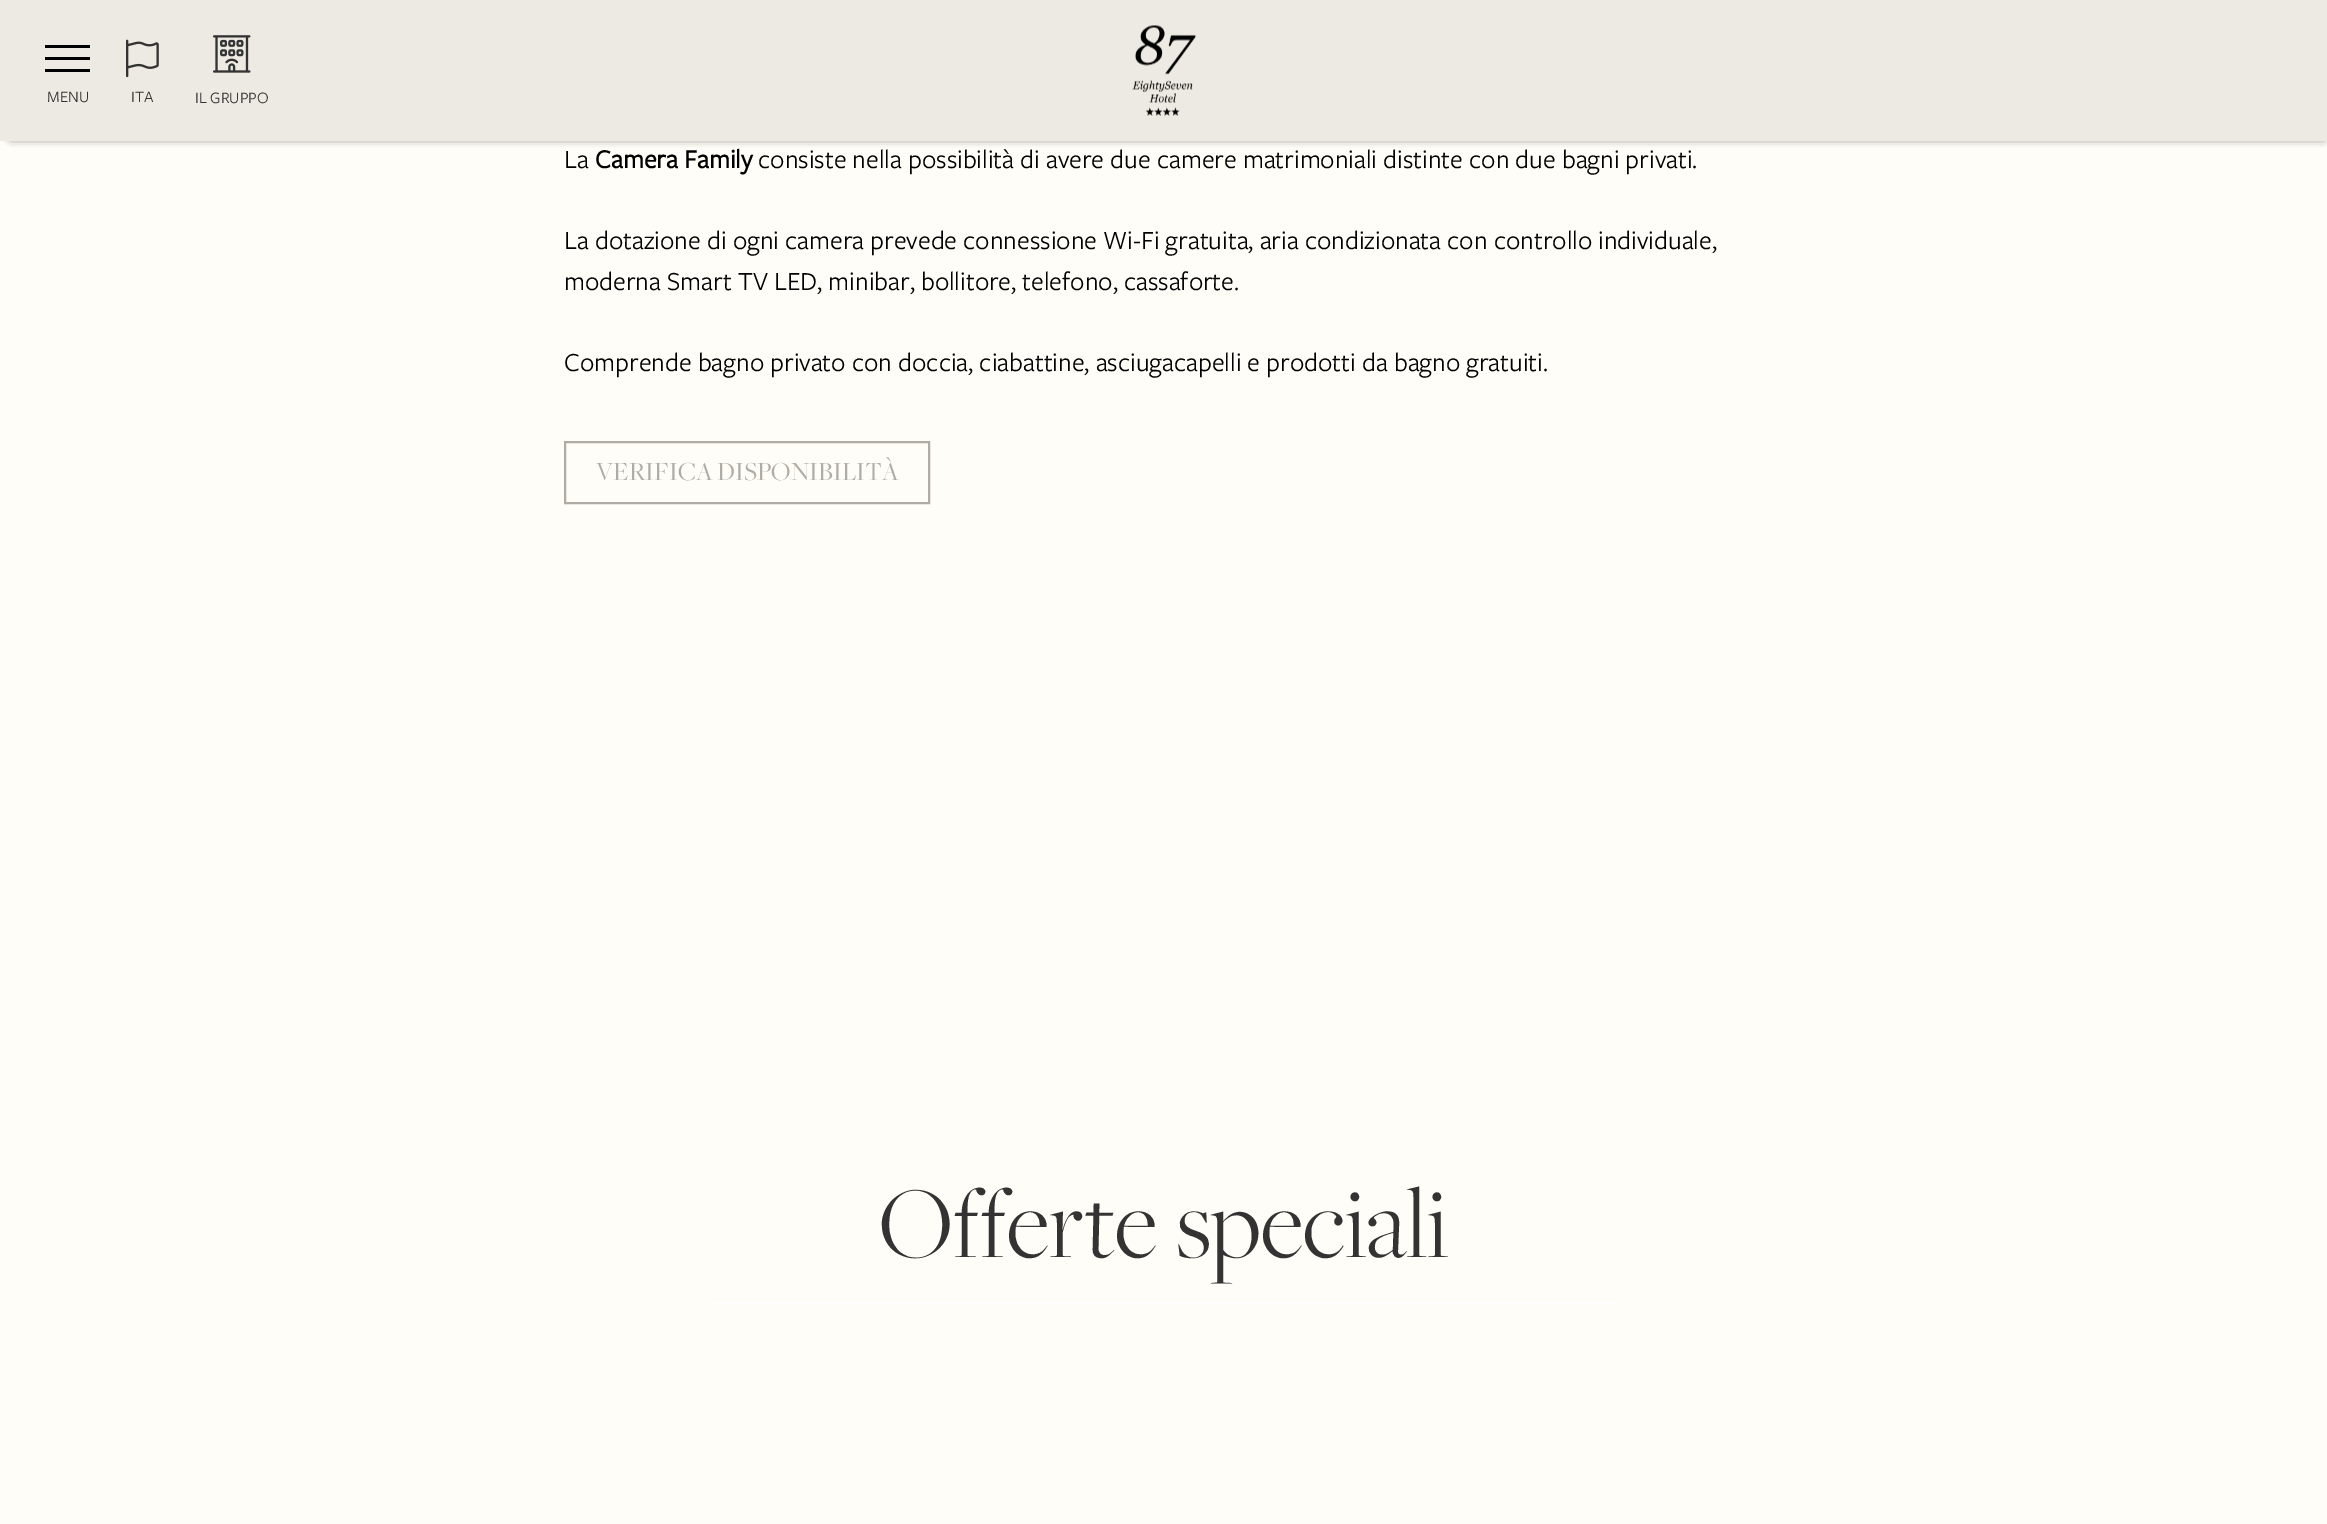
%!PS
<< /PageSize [2327 1524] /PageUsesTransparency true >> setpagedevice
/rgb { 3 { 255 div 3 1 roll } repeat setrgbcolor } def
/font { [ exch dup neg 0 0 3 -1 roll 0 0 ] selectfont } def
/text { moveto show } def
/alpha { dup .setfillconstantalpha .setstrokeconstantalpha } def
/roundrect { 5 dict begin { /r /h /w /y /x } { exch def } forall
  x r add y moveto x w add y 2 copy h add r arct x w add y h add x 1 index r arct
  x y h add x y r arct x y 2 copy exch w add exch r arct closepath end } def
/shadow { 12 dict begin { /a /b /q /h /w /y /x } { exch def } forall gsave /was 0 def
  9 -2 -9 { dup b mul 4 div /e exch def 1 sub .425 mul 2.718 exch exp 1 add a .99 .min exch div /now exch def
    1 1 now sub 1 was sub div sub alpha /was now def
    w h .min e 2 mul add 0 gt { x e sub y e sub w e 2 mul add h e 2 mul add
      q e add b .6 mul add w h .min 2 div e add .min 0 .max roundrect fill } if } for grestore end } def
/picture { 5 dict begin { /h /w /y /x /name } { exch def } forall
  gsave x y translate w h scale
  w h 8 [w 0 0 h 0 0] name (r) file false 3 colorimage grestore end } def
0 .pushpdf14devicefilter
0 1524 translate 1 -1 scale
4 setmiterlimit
255 253 247 rgb
0 0 2327 1524 rectfill
0 0 0 rgb
11 11 2313 126 0 4.5 1 shadow
236 234 226 rgb
0 0 2327 141 rectfill
0 0 0 rgb
45 45 45 3 rectfill
45 57 45 3 rectfill
45 69 45 3 rectfill
(img_01.rgb) 126 39 33 39 picture
(img_02.rgb) 213 35 38 38 picture
(img_03.rgb) 1132 25 64 91 picture
175 172 166 rgb
2 setlinewidth
565 442 364 61 rectstroke
255 255 255 rgb
714 1302 900 2 rectfill
/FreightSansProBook-Regular 16.5 font
51 51 51 rgb
(MENU) 47 102 text
(ITA) 131 102 text
(IL GRUPPO) 195 103 text
/FreightSansProBook-Regular 27 font
0 0 0 rgb
(La) 564 168 text
/FreightSansProBook-Bold 27 font
(Camera Family) 595 168 text
/FreightSansProBook-Regular 27 font
(consiste nella possibilità di avere due camere matrimoniali distinte con due bagni privati.) 758 168 text
(La dotazione di ogni camera prevede connessione Wi-Fi gratuita, aria condizionata con controllo individuale,) 564 249 text
(moderna Smart TV LED, minibar, bollitore, telefono, cassaforte.) 564 290 text
(Comprende bagno privato con doccia, ciabattine, asciugacapelli e prodotti da bagno gratuiti.) 564 371 text
/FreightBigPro-Regular 27 font
175 172 166 rgb
(VERIFICA DISPONIBILITÀ) 596 480 text
/FreightBigPro-Light 105 font
51 51 51 rgb
(Offerte speciali) 879 1257 text
.poppdf14devicefilter showpage
